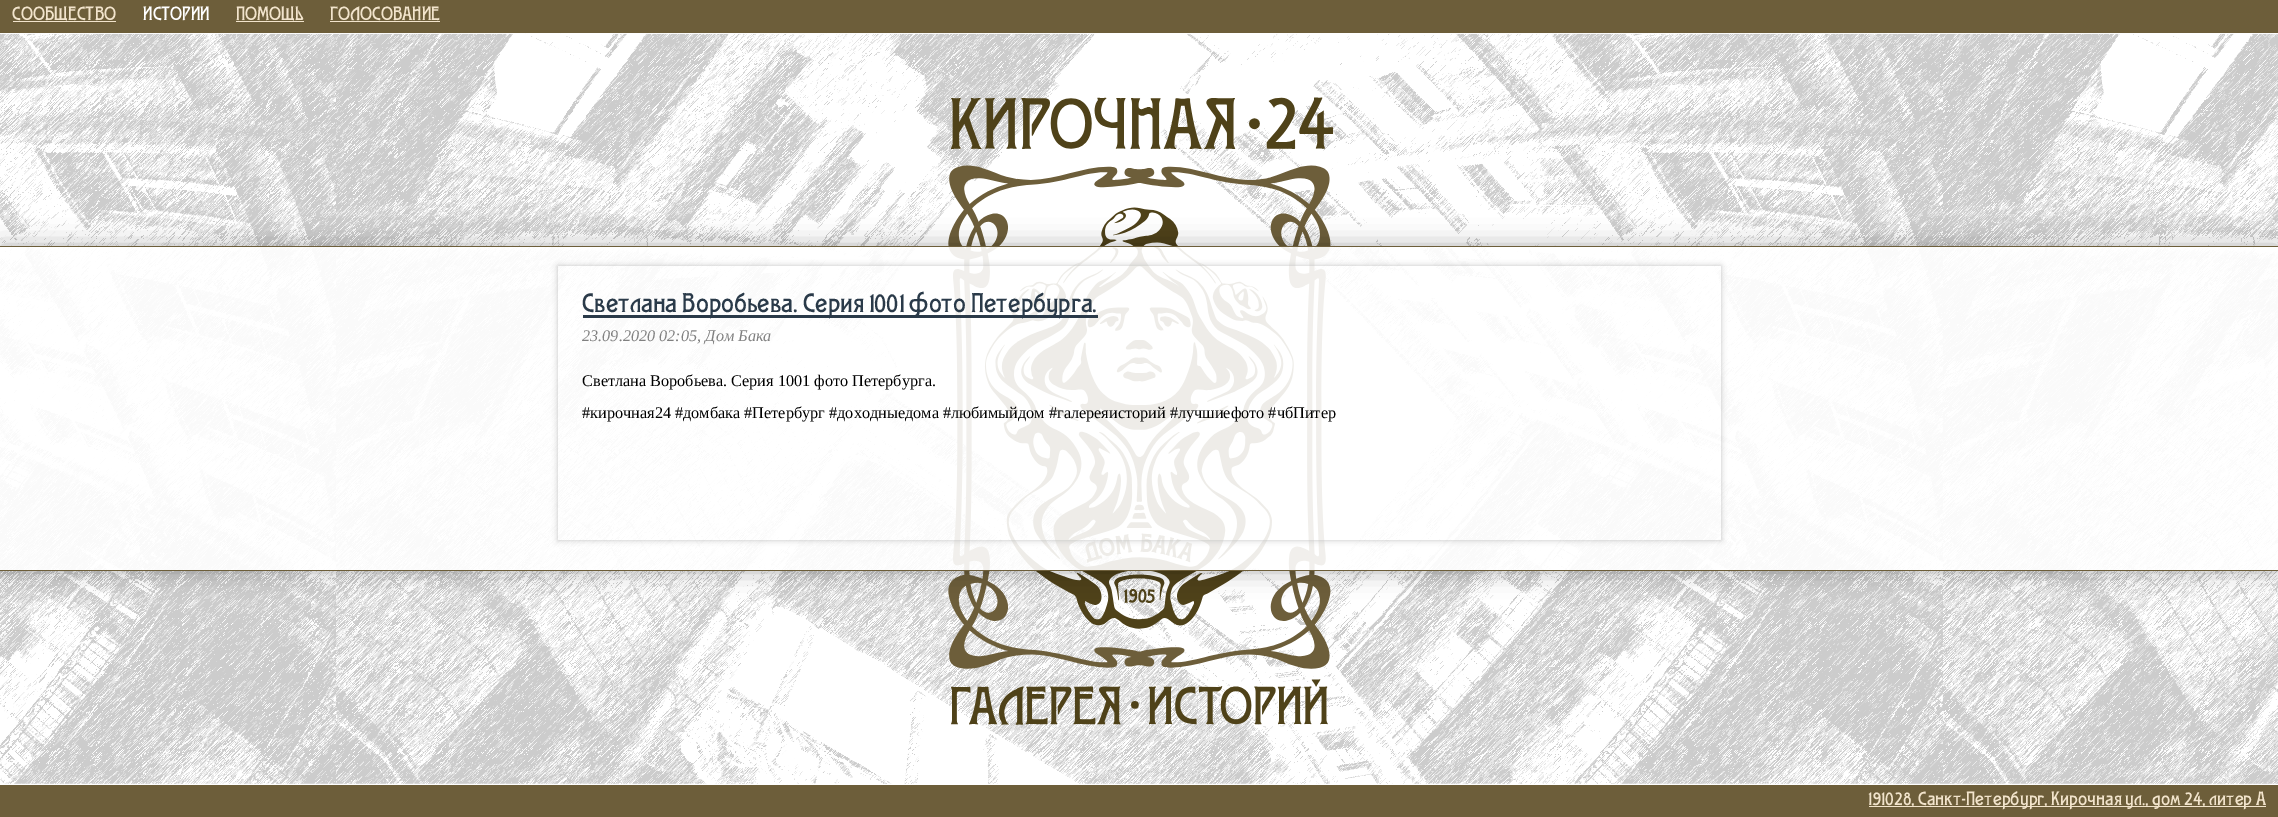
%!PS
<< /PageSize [2278 817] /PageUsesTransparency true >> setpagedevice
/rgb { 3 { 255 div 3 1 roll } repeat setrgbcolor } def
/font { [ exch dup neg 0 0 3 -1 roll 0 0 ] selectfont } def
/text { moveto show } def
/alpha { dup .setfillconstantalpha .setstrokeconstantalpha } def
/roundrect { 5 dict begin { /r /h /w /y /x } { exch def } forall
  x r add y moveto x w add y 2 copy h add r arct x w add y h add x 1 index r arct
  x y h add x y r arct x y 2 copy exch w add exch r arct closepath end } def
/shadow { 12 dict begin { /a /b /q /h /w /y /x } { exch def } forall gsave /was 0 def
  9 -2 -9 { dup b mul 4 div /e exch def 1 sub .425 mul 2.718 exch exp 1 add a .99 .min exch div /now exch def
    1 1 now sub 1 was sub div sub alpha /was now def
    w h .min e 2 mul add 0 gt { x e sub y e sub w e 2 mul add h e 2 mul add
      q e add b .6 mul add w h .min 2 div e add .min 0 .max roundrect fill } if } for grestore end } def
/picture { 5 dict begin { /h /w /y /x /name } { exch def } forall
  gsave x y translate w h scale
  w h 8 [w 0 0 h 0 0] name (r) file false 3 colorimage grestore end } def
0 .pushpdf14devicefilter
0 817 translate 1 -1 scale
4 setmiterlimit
255 255 255 rgb
0 0 2278 817 rectfill
(img_01.rgb) 0 33 2278 752 picture
109 94 58 rgb
0 0 2278 33 rectfill
242 228 204 rgb
13 21 103 1 rectfill
236 21 68 1 rectfill
330 21 110 1 rectfill
(img_02.rgb) 948 97 386 628 picture
0.8 alpha
255 255 255 rgb
0 33 2278 1 rectfill
0 784 2278 1 rectfill
gsave
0 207 moveto 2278 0 rlineto 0 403 rlineto -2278 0 rlineto closepath 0 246 moveto 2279 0 rlineto 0 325 rlineto -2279 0 rlineto closepath eoclip newpath
1 alpha
0 0 0 rgb
0 246 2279 325 0 12.5 0.3 shadow
grestore
0.9 alpha
0 247 2278 323 rectfill
1 alpha
109 94 58 rgb
0 246 2278 1 rectfill
0 570 2278 1 rectfill
gsave
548 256 moveto 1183 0 rlineto 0 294 rlineto -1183 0 rlineto closepath 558 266 moveto 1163 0 rlineto 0 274 rlineto -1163 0 rlineto closepath eoclip newpath
192 192 192 rgb
558 266 1163 274 0 3 1 shadow
grestore
42 58 73 rgb
583 315 515 3 rectfill
109 94 58 rgb
0 785 2278 32 rectfill
242 228 204 rgb
1869 806 397 1 rectfill
/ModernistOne-Regular 19.6 font
(СООБЩЕСТВО) 12 20 text
255 255 255 rgb
(ИСТОРИИ) 143 20 text
242 228 204 rgb
(ПОМОЩЬ) 236 20 text
(ГОЛОСОВАНИЕ) 330 20 text
/ModernistOne-Regular 27.5 font
42 58 73 rgb
(Светлана Воробьева. Серия 1001 фото Петербурга.) 582 312 text
/LiberationSerif-Italic 16.25 font
128 128 128 rgb
(23.09.2020 02:05, Дом Бака) 582 341 text
/LiberationSerif-Regular 16.25 font
0 0 0 rgb
(Светлана Воробьева. Серия 1001 фото Петербурга.) 582 386 text
(#кирочная24 #домбака #Петербург #доходныедома #любимыйдом #галереяисторий #лучшиефото #чбПитер) 582 418 text
/ModernistOne-Regular 19.6 font
242 228 204 rgb
(191028, Санкт-Петербург, Кирочная ул., дом 24, литер А) 1868 805 text
.poppdf14devicefilter showpage
